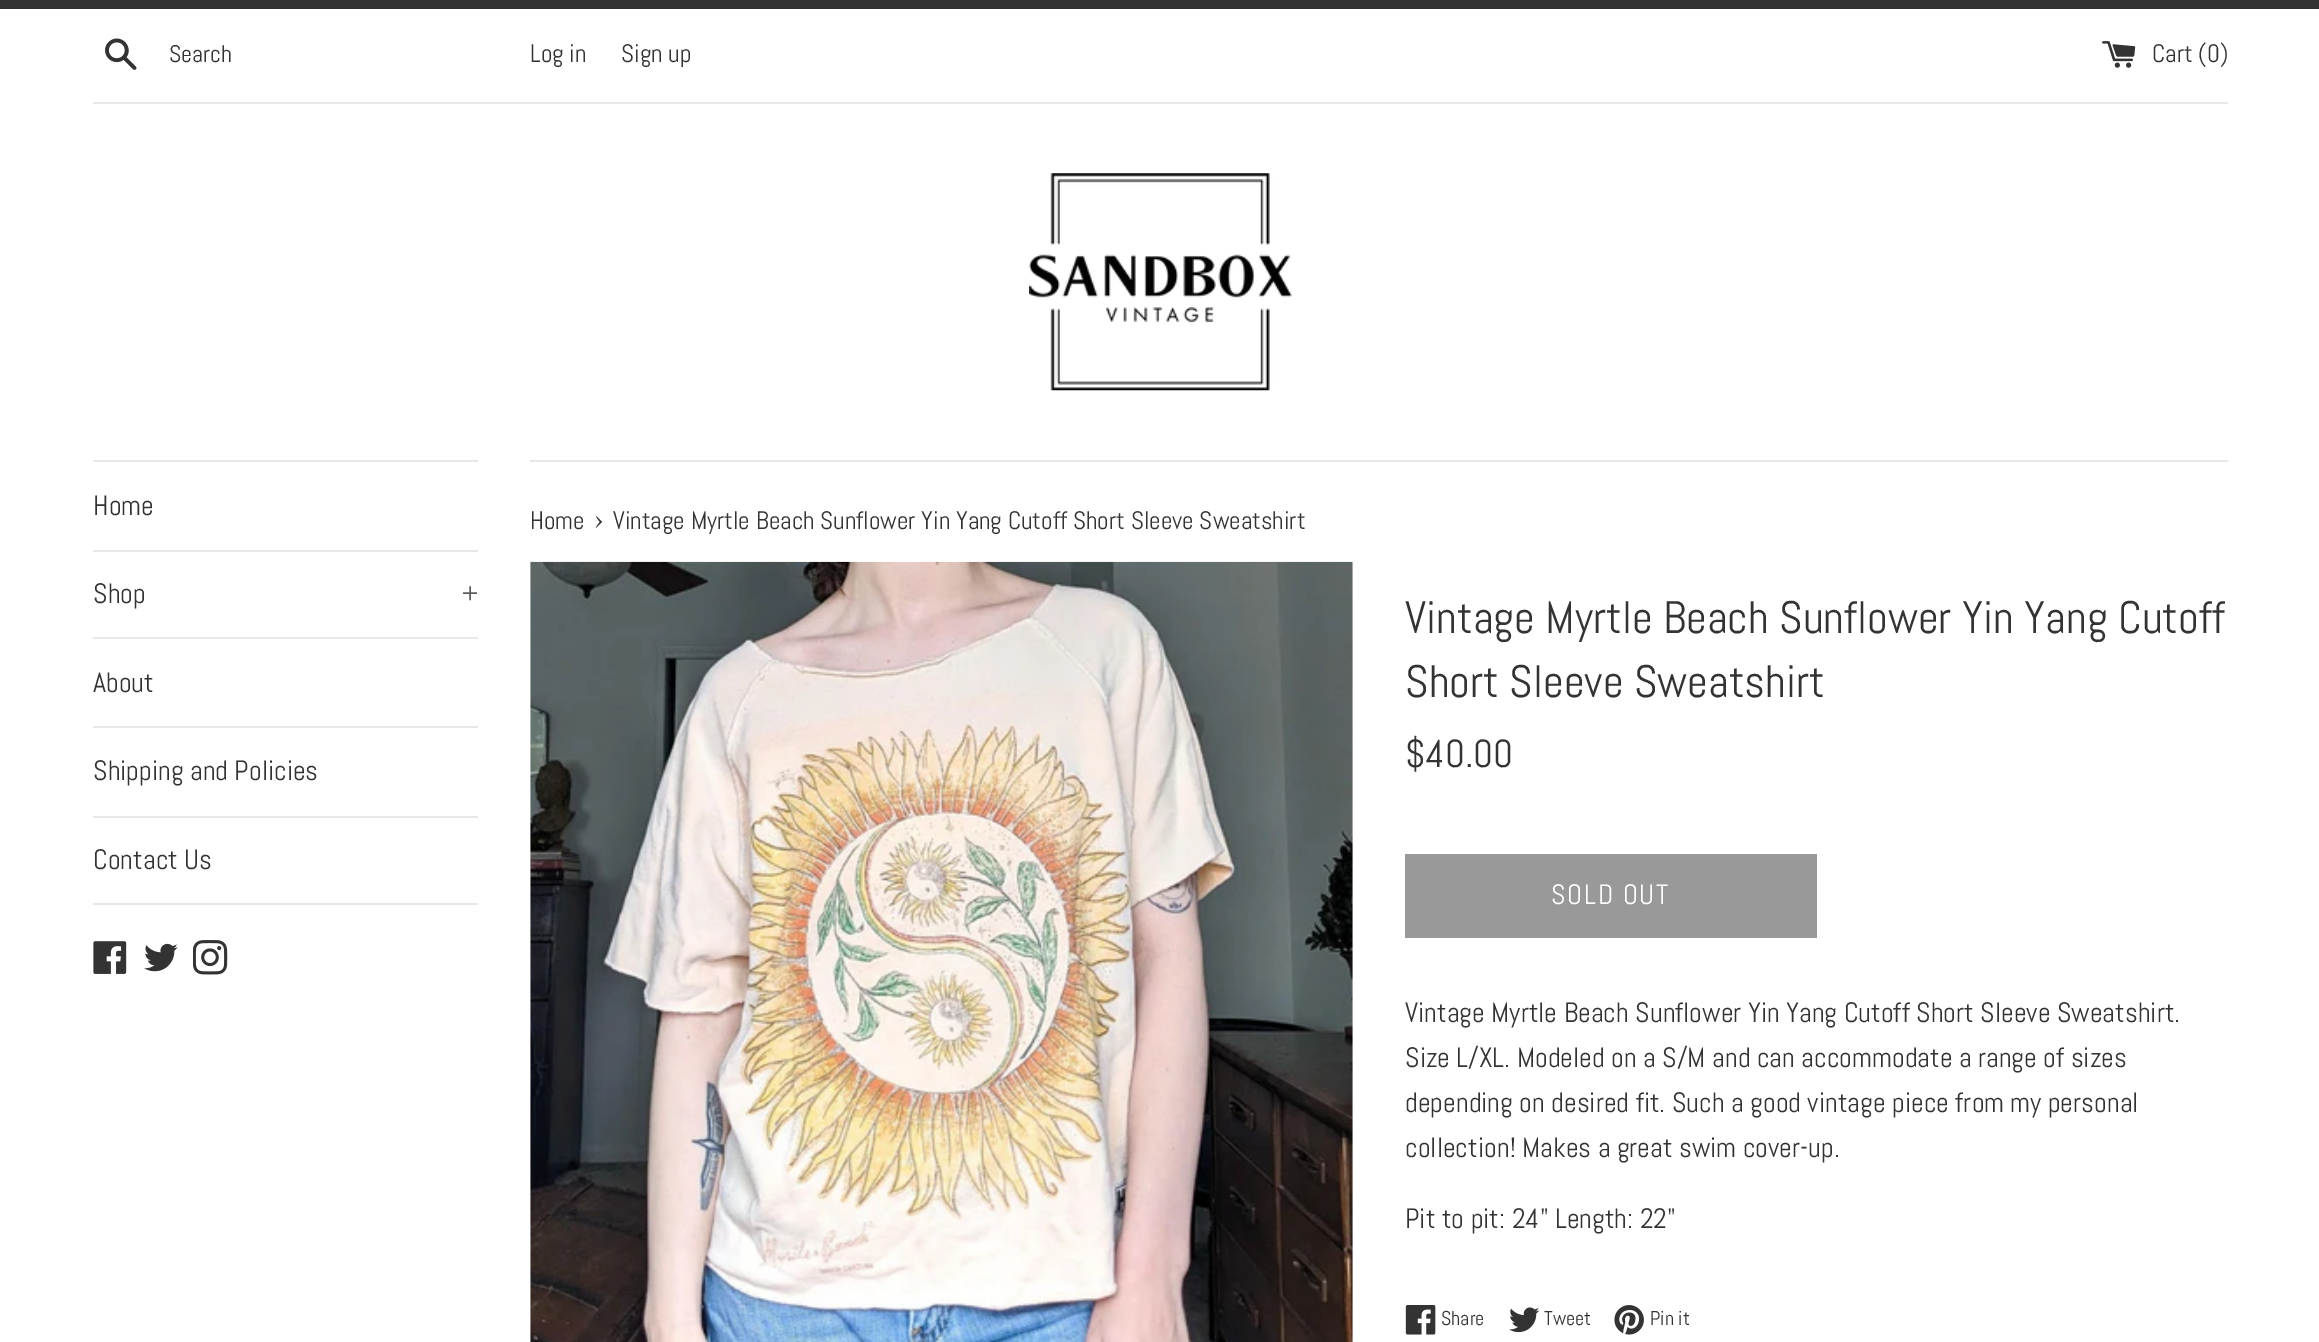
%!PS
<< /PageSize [2319 1342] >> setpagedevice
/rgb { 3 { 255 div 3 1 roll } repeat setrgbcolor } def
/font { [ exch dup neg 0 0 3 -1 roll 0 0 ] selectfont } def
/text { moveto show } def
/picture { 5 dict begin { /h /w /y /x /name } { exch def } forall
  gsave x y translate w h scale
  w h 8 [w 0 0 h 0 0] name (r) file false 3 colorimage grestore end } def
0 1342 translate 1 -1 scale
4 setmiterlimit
255 255 255 rgb
0 0 2319 1342 rectfill
51 51 51 rgb
0 0 2319 9 rectfill
(img_01.rgb) 105 38 32 32 picture
(img_02.rgb) 2102 41 34 27 picture
232 232 232 rgb
93 102 2135 2 rectfill
(img_03.rgb) 1029 173 263 218 picture
93 460 385 2 rectfill
93 550 385 2 rectfill
93 637 385 2 rectfill
93 726 385 2 rectfill
93 816 385 2 rectfill
93 903 385 2 rectfill
(img_04.rgb) 93 941 34 33 picture
(img_05.rgb) 144 943 34 29 picture
(img_06.rgb) 193 940 35 35 picture
530 460 1698 2 rectfill
(img_07.rgb) 530 561 823 781 picture
153 153 153 rgb
1405 854 412 84 rectfill
(img_08.rgb) 1405 1305 31 30 picture
(img_09.rgb) 1509 1307 31 26 picture
(img_10.rgb) 1614 1305 30 30 picture
/Abel-Regular 24 font
51 51 51 rgb
(Search) 169 62 text
/Abel-Regular 25.2 font
(Log in) 530 62 text
(Sign up) 621 62 text
(Cart \(0\)) 2152 62 text
/Abel-Regular 28 font
(Home) 93 515 text
(Shop) 93 603 text
92 92 92 rgb
(+) 462 603 text
51 51 51 rgb
(About) 93 692 text
(Shipping and Policies) 93 780 text
(Contact Us) 93 869 text
/Abel-Regular 25.2 font
(Home) 530 529 text
/Abel-Regular 31 font
(›) 594 529 text
/Abel-Regular 25.2 font
(Vintage Myrtle Beach Sunflower Yin Yang Cutoff Short Sleeve Sweatshirt) 613 529 text
/Abel-Regular 45.5 font
(Vintage Myrtle Beach Sunflower Yin Yang Cutoff) 1405 633 text
(Short Sleeve Sweatshirt) 1405 697 text
/Abel-Regular 39 font
($40.00) 1405 767 text
/Abel-Regular 28 font
255 255 255 rgb
1551 904 moveto 1.75 0 (SOLD OUT) ashow
51 51 51 rgb
(Vintage Myrtle Beach Sunflower Yin Yang Cutoff Short Sleeve Sweatshirt.) 1405 1022 text
(Size L/XL. Modeled on a S/M and can accommodate a range of sizes) 1405 1067 text
(depending on desired fit. Such a good vintage piece from my personal) 1405 1112 text
(collection! Makes a great swim cover-up.) 1405 1157 text
(Pit to pit: 24" Length: 22") 1405 1228 text
/Abel-Regular 20 font
(Share) 1441 1325 text
(Tweet) 1544 1325 text
(Pin it) 1650 1325 text
showpage
